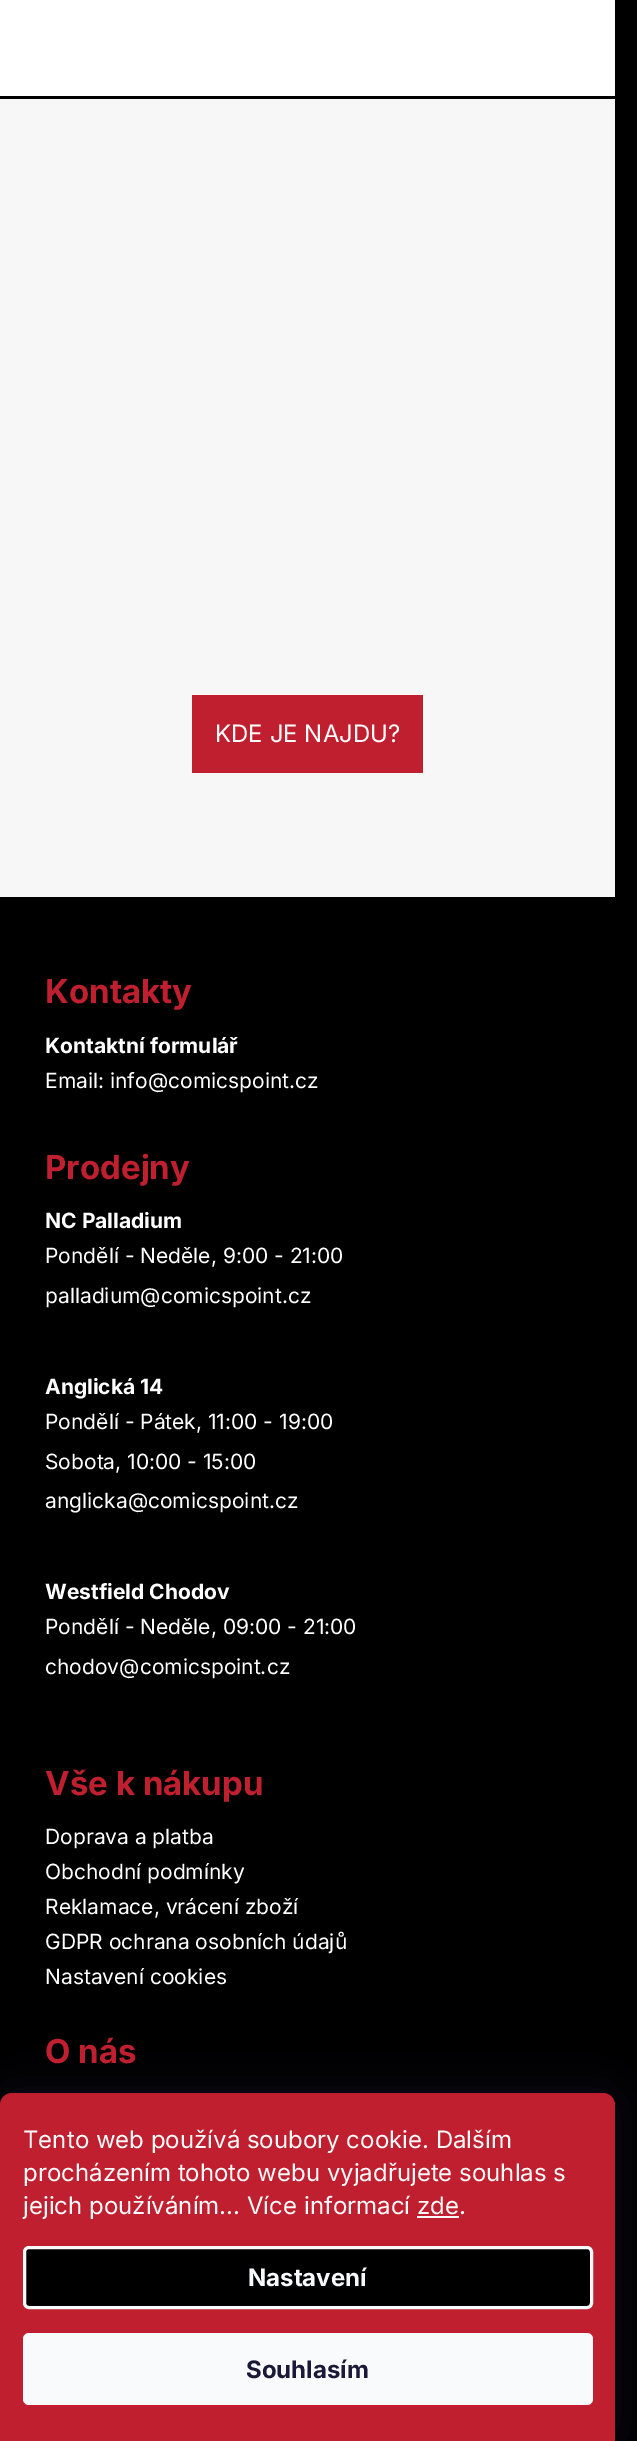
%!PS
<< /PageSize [637 2441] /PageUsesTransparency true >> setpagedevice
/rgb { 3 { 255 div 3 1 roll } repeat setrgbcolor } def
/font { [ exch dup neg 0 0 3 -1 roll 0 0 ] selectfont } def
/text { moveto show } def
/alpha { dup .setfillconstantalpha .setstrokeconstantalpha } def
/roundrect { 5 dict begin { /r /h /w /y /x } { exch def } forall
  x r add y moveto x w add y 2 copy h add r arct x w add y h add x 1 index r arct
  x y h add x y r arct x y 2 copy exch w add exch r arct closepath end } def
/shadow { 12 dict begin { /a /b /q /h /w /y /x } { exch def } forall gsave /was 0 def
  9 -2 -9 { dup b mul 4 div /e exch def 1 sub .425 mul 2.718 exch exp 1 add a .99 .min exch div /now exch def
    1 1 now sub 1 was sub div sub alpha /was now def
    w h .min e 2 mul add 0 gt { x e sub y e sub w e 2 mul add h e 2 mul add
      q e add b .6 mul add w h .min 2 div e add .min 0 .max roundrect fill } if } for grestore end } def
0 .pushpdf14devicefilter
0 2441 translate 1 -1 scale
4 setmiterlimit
0 0 0 rgb
0 0 637 2441 rectfill
255 255 255 rgb
0 0 615 96 rectfill
247 247 247 rgb
0 99 615 798 rectfill
191 31 46 rgb
192 695 231 78 rectfill
27 25 57 rgb
0 2093 615 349 12 22.5 0.5 shadow
191 31 46 rgb
12 2093 moveto 591 0 rlineto 6.5 0 12 5.5 12 12 rcurveto 0 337 rlineto -615 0 rlineto 0 -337 rlineto 0 -6.5 5.5 -12 12 -12 rcurveto closepath fill
248 250 251 rgb
417 2216 42 2 rectfill
0 0 0 rgb
24.5 2247.5 567 60 4.5 roundrect gsave fill grestore
248 250 251 rgb
3 setlinewidth
stroke
23 2333 570 72 6 roundrect fill
/Inter-Regular 24 font
255 255 255 rgb
(KDE JE NAJDU?) 215 742 text
/Inter-Bold 33 font
191 31 46 rgb
(Kontakty) 45 1003 text
/Inter-Bold 21 font
255 255 255 rgb
(Kontaktní formulář) 45 1053 text
/Inter-Regular 21 font
(Email: info@comicspoint.cz) 45 1088 text
/Inter-Bold 33 font
191 31 46 rgb
(Prodejny) 45 1179 text
/Inter-Bold 21 font
255 255 255 rgb
(NC Palladium) 45 1228 text
/Inter-Regular 21 font
(Pondělí - Neděle, 9:00 - 21:00) 45 1263 text
(palladium@comicspoint.cz) 45 1303 text
/Inter-Bold 21 font
(Anglická 14) 45 1394 text
/Inter-Regular 21 font
(Pondělí - Pátek, 11:00 - 19:00) 45 1429 text
(Sobota, 10:00 - 15:00) 45 1469 text
(anglicka@comicspoint.cz) 45 1508 text
/Inter-Bold 21 font
(Westfield Chodov) 45 1599 text
/Inter-Regular 21 font
(Pondělí - Neděle, 09:00 - 21:00) 45 1634 text
(chodov@comicspoint.cz) 45 1674 text
/Inter-Bold 33 font
191 31 46 rgb
(Vše k nákupu) 45 1795 text
/Inter-Regular 21 font
255 255 255 rgb
(Doprava a platba) 45 1844 text
(Obchodní podmínky) 45 1879 text
(Reklamace, vrácení zboží) 45 1914 text
(GDPR ochrana osobních údajů) 45 1949 text
(Nastavení cookies) 45 1984 text
/Inter-Bold 33 font
191 31 46 rgb
(O nás) 45 2063 text
/Inter-Regular 24 font
248 250 251 rgb
(Tento web používá soubory cookie. Dalším) 23 2148 text
(procházením tohoto webu vyjadřujete souhlas s) 23 2181 text
(jejich používáním... Více informací zde.) 23 2214 text
/Inter-Bold 24 font
(Nastavení) 248 2286 text
26 25 55 rgb
(Souhlasím) 246 2378 text
.poppdf14devicefilter showpage
